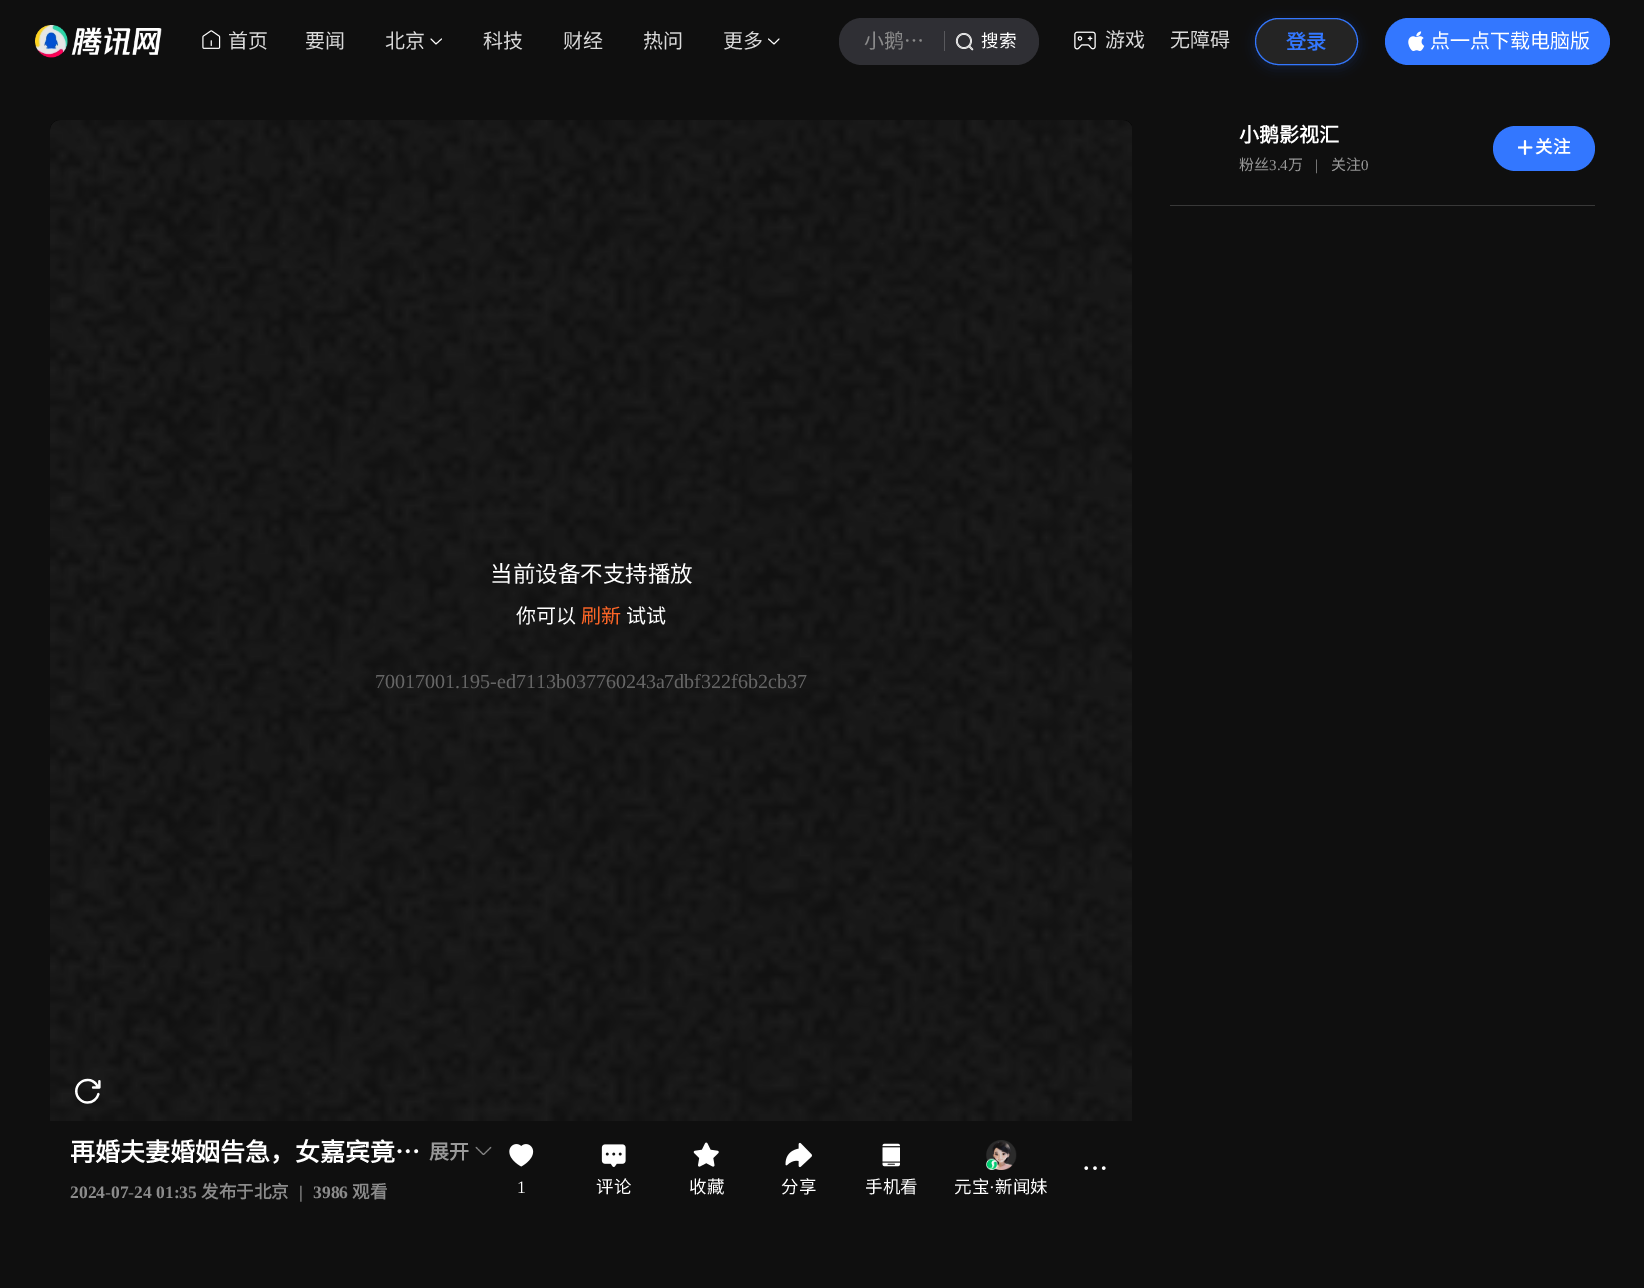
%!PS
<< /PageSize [1644 1288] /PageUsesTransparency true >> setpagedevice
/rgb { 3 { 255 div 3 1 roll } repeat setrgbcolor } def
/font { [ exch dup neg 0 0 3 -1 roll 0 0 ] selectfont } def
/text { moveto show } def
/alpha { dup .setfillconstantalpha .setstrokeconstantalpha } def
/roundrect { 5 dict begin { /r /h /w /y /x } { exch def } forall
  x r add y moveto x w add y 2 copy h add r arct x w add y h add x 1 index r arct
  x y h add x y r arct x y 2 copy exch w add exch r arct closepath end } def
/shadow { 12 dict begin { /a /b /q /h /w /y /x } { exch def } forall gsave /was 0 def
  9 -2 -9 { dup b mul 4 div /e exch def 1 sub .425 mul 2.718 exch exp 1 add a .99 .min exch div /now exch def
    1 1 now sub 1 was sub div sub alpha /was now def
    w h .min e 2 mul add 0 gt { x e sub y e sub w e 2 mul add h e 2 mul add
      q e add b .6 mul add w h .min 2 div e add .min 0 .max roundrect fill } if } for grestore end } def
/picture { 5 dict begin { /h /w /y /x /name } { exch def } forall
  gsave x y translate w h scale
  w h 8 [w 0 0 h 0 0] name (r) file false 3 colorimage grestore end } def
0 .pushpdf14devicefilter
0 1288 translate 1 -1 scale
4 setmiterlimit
15 15 15 rgb
0 0 1644 1288 rectfill
(img_01.rgb) 35 25 127 33 picture
(img_02.rgb) 202 30 19 19 picture
255 255 255 rgb
0.9 setlinewidth
1 setlinecap
1 setlinejoin
441.5 39 moveto -5.5 5 rlineto -5 -5 rlineto stroke
779 39 moveto -5 5 rlineto -5.5 -5 rlineto stroke
47 47 52 rgb
839 18 200 47 23 roundrect fill
89 89 93 rgb
944 31 1 20 rectfill
(img_03.rgb) 955 32 19 19 picture
(img_04.rgb) 1074 31 22 19 picture
gsave
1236 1 moveto 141 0 rlineto 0 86 rlineto -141 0 rlineto closepath 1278.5 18 moveto 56 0 rlineto 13 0 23.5 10.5 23.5 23.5 rcurveto 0 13 -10.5 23.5 -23.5 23.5 rcurveto -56 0 rlineto -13 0 -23.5 -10.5 -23.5 -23.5 rcurveto 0 -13 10.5 -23.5 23.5 -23.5 rcurveto closepath eoclip newpath
51 119 255 rgb
1255 20 103 48 24 6 0.16 shadow
grestore
0.1 alpha
217 217 217 rgb
1255.5 18.5 102 46 23 roundrect fill
1 alpha
51 119 255 rgb
1 setlinewidth
0 setlinecap
0 setlinejoin
1255.5 18.5 102 46 23 roundrect stroke
1385 18 225 47 23.5 roundrect fill
(img_05.rgb) 1408 31 17 20 picture
1493 126 102 45 22.5 roundrect fill
(img_06.rgb) 1518 140 15 15 picture
56 56 56 rgb
1170 205 425 1 rectfill
(img_07.rgb) 50 120 1082 1001 picture
(img_08.rgb) 475 1146 17 9 picture
(img_09.rgb) 1084 1166 22 4 picture
(img_10.rgb) 509 1144 25 23 picture
(img_11.rgb) 601 1144 25 23 picture
(img_12.rgb) 693 1142 26 25 picture
(img_13.rgb) 785 1142 27 26 picture
(img_14.rgb) 882 1143 18 24 picture
(img_15.rgb) 986 1140 31 30 picture
(img_16.rgb) 986 1158 12 12 picture
/NotoSansCJKSC-Regular 20 font
217 217 217 rgb
(首页) 228 48 text
(要闻) 305 48 text
(北京) 385 48 text
(科技) 483 48 text
(财经) 563 48 text
(热问) 643 48 text
(更多) 723 48 text
139 139 139 rgb
(小鹅…) 864 48 text
/NotoSansCJKSC-Regular 17.5 font
255 255 255 rgb
(搜索) 981 47 text
/NotoSansCJKSC-Regular 20 font
217 217 217 rgb
(游戏) 1105 47 text
(无障碍) 1170 47 text
/NotoSansCJKSC-Bold 20 font
51 119 255 rgb
(登录) 1286 49 text
/NotoSansCJKSC-Regular 20 font
255 255 255 rgb
(点一点下载电脑版) 1430 48 text
/NotoSansCJKSC-Bold 20 font
(小鹅影视汇) 1239 142 text
/NotoSansCJKSC-Regular 15 font
153 153 153 rgb
(粉丝) 1239 170 text
/LiberationSerif-Regular 15 font
(3.4) 1269 170 text
/NotoSansCJKSC-Regular 15 font
(万) 1288 170 text
/LiberationSerif-Regular 15 font
(|) 1315 170 text
/NotoSansCJKSC-Regular 15 font
(关注) 1331 170 text
/LiberationSerif-Regular 15 font
(0) 1361 170 text
/NotoSansCJKSC-Bold 17.5 font
255 255 255 rgb
(关注) 1535 153 text
/NotoSansCJKSC-Regular 22.5 font
(当前设备不支持播放) 490 582 text
/NotoSansCJKSC-Regular 20 font
(你可以) 516 623 text
252 101 38 rgb
(刷新) 581 623 text
255 255 255 rgb
(试试) 626 623 text
/LiberationSerif-Regular 20 font
102 102 102 rgb
(70017001.195-ed7113b037760243a7dbf322f6b2cb37) 375 688 text
/NotoSansCJKSC-Bold 25 font
255 255 255 rgb
(再婚夫妻婚姻告急，女嘉宾竟…) 70 1161 text
/NotoSansCJKSC-Bold 20 font
153 153 153 rgb
(展开) 429 1159 text
/LiberationSerif-Bold 17.5 font
139 139 139 rgb
(2024-07-24 01:35) 70 1198 text
/NotoSansCJKSC-Bold 17.5 font
(发布于北京) 201 1198 text
/LiberationSerif-Bold 17.5 font
(|) 299 1198 text
(3986) 313 1198 text
/NotoSansCJKSC-Bold 17.5 font
(观看) 352 1198 text
/LiberationSerif-Regular 17.5 font
255 255 255 rgb
(1) 517 1193 text
/NotoSansCJKSC-Regular 17.5 font
(评论) 596 1193 text
(收藏) 689 1193 text
(分享) 781 1193 text
(手机看) 865 1193 text
(元宝) 954 1193 text
/LiberationSerif-Regular 17.5 font
(·) 989 1193 text
/NotoSansCJKSC-Regular 17.5 font
(新闻妹) 995 1193 text
.poppdf14devicefilter showpage
